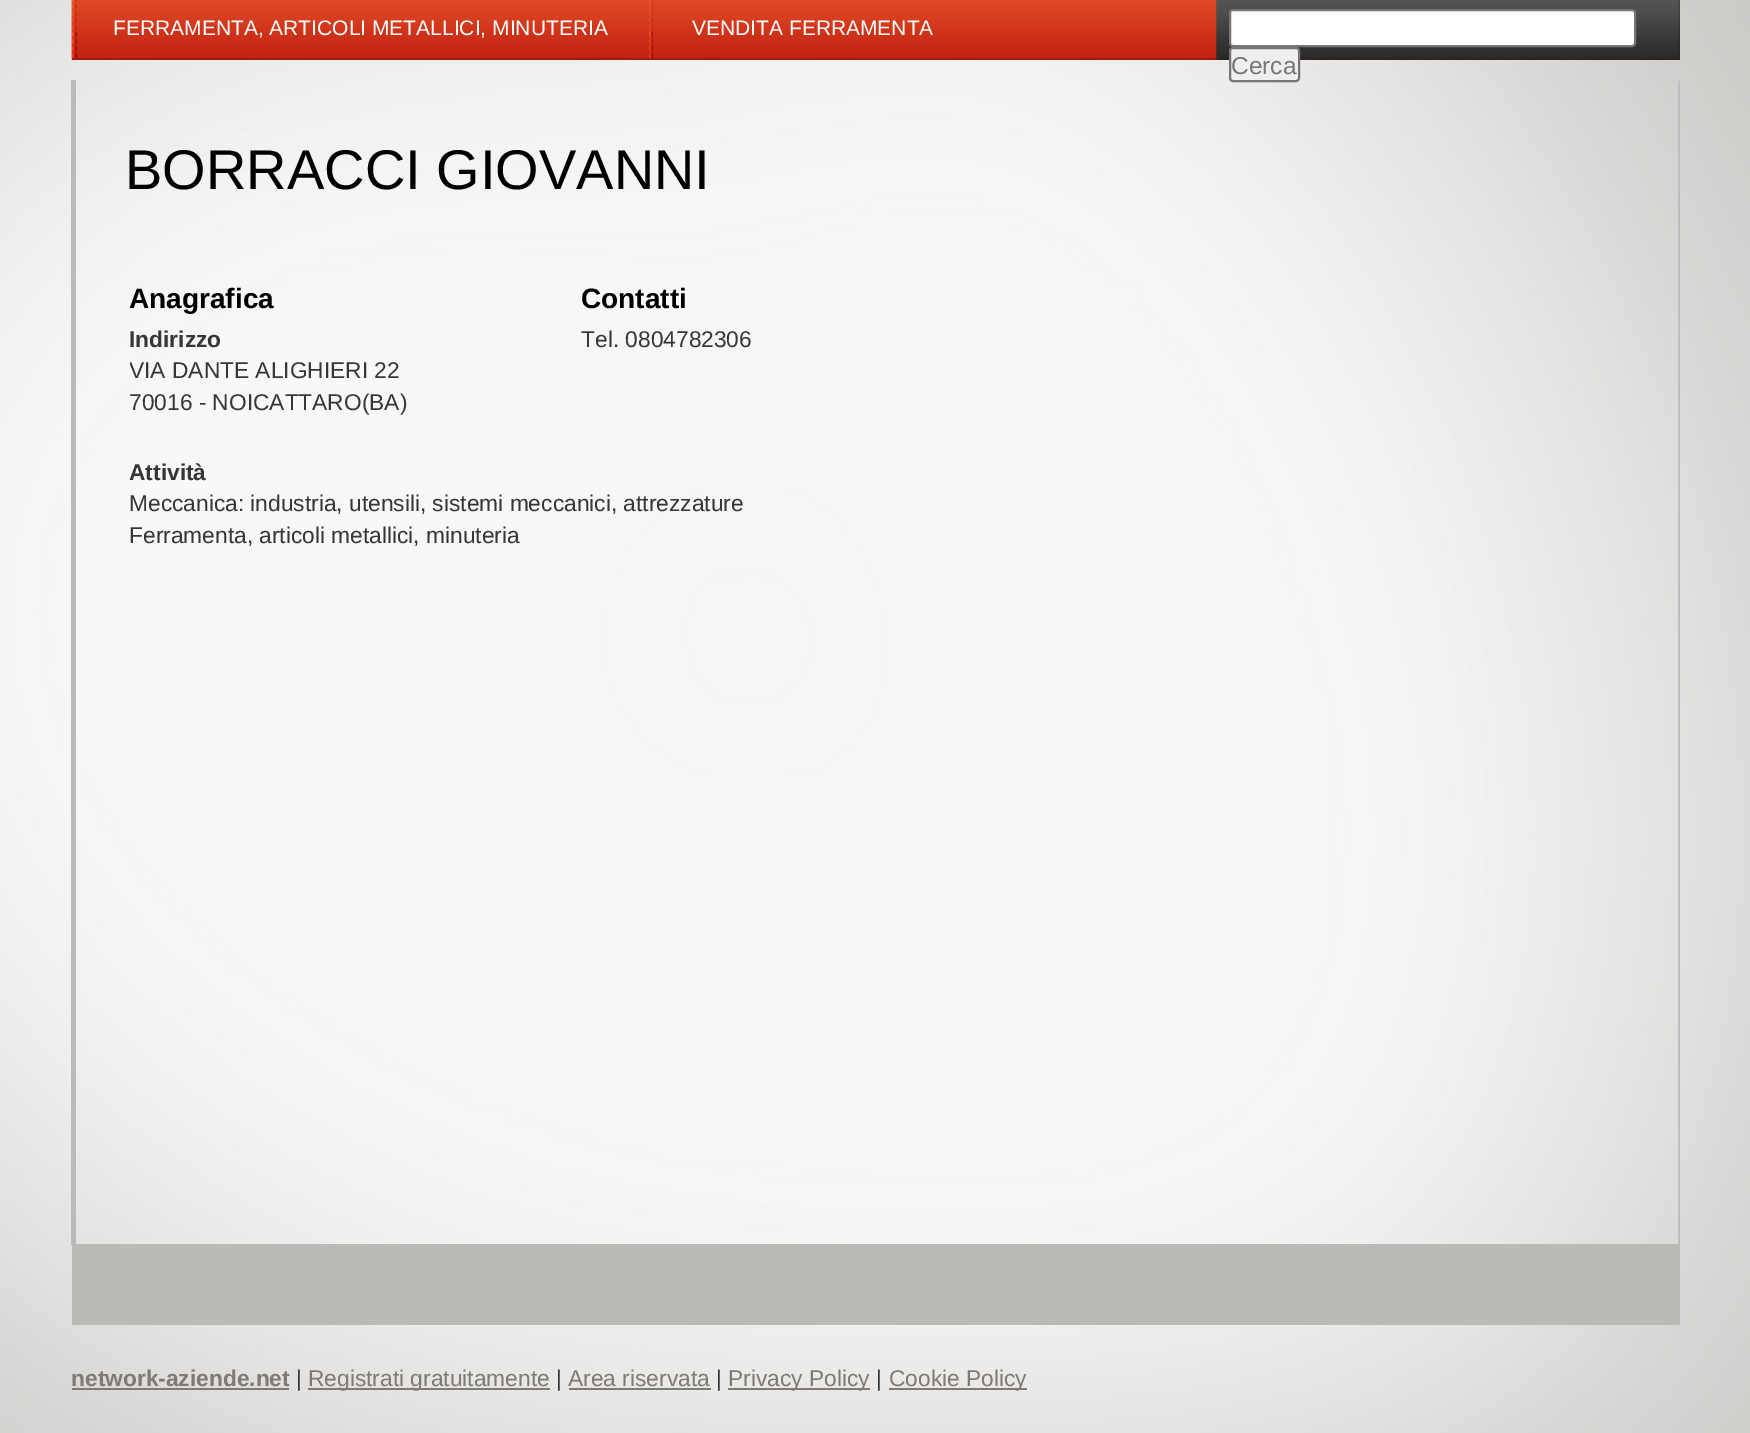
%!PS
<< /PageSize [1750 1433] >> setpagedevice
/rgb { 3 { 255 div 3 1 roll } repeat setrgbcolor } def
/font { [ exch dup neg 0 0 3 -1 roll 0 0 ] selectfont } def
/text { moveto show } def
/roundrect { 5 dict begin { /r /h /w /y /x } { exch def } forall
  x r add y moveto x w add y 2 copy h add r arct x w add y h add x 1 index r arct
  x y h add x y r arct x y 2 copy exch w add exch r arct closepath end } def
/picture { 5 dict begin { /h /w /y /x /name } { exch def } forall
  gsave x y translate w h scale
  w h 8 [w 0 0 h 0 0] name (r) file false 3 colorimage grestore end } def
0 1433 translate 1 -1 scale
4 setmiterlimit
255 255 255 rgb
0 0 1750 1433 rectfill
(img_01.rgb) 0 0 1750 1433 picture
(img_02.rgb) 71 0 1146 58 picture
(img_03.rgb) 71 58 1609 2 picture
(img_04.rgb) 71 0 6 58 picture
(img_05.rgb) 649 0 4 58 picture
(img_06.rgb) 1216 0 464 60 picture
1230 10 405 36 3 roundrect gsave fill grestore
118 118 118 rgb
2 setlinewidth
stroke
239 239 239 rgb
1230 48 69 33 3 roundrect gsave fill grestore
118 118 118 rgb
stroke
187 186 185 rgb
71 80 5 1165 rectfill
(img_07.rgb) 1678 80 2 1164 picture
188 186 182 rgb
72 1244 1608 81 rectfill
126 123 118 rgb
72 1388 217 2 rectfill
308 1388 242 2 rectfill
569 1388 142 2 rectfill
728 1388 142 2 rectfill
889 1388 138 2 rectfill
/LiberationSans-Regular 21 font
255 255 255 rgb
(FERRAMENTA, ARTICOLI METALLICI, MINUTERIA) 113 35 text
(VENDITA FERRAMENTA) 692 35 text
/LiberationSans-Regular 24.5 font
119 119 119 rgb
(Cerca) 1231 74 text
/LiberationSans-Regular 56 font
0 0 0 rgb
(BORRACCI GIOVANNI) 125 189 text
/LiberationSans-Bold 28 font
(Anagrafica) 129 308 text
/LiberationSans-Bold 22.75 font
54 54 54 rgb
(Indirizzo) 129 347 text
gsave
130 249 1006 169 rectclip
/LiberationSans-Regular 22.75 font
(VIA DANTE ALIGHIERI 22) 129 378 text
grestore
/LiberationSans-Regular 22.75 font
(70016 - NOICATTARO\(BA\)) 129 410 text
/LiberationSans-Bold 28 font
0 0 0 rgb
(Contatti) 581 308 text
/LiberationSans-Regular 22.75 font
54 54 54 rgb
(Tel. 0804782306) 581 347 text
/LiberationSans-Bold 22.75 font
(Attività) 129 480 text
/LiberationSans-Regular 22.75 font
(Meccanica: industria, utensili, sistemi meccanici, attrezzature) 129 511 text
(Ferramenta, articoli metallici, minuteria) 129 543 text
/LiberationSans-Bold 22.75 font
126 123 118 rgb
(network-aziende.net) 71 1386 text
/LiberationSans-Regular 22.75 font
54 54 54 rgb
(|) 296 1386 text
126 123 118 rgb
(Registrati gratuitamente) 308 1386 text
54 54 54 rgb
(|) 556 1386 text
126 123 118 rgb
(Area riservata) 568 1386 text
54 54 54 rgb
(|) 716 1386 text
126 123 118 rgb
(Privacy Policy) 728 1386 text
54 54 54 rgb
(|) 876 1386 text
126 123 118 rgb
(Cookie Policy) 889 1386 text
showpage
